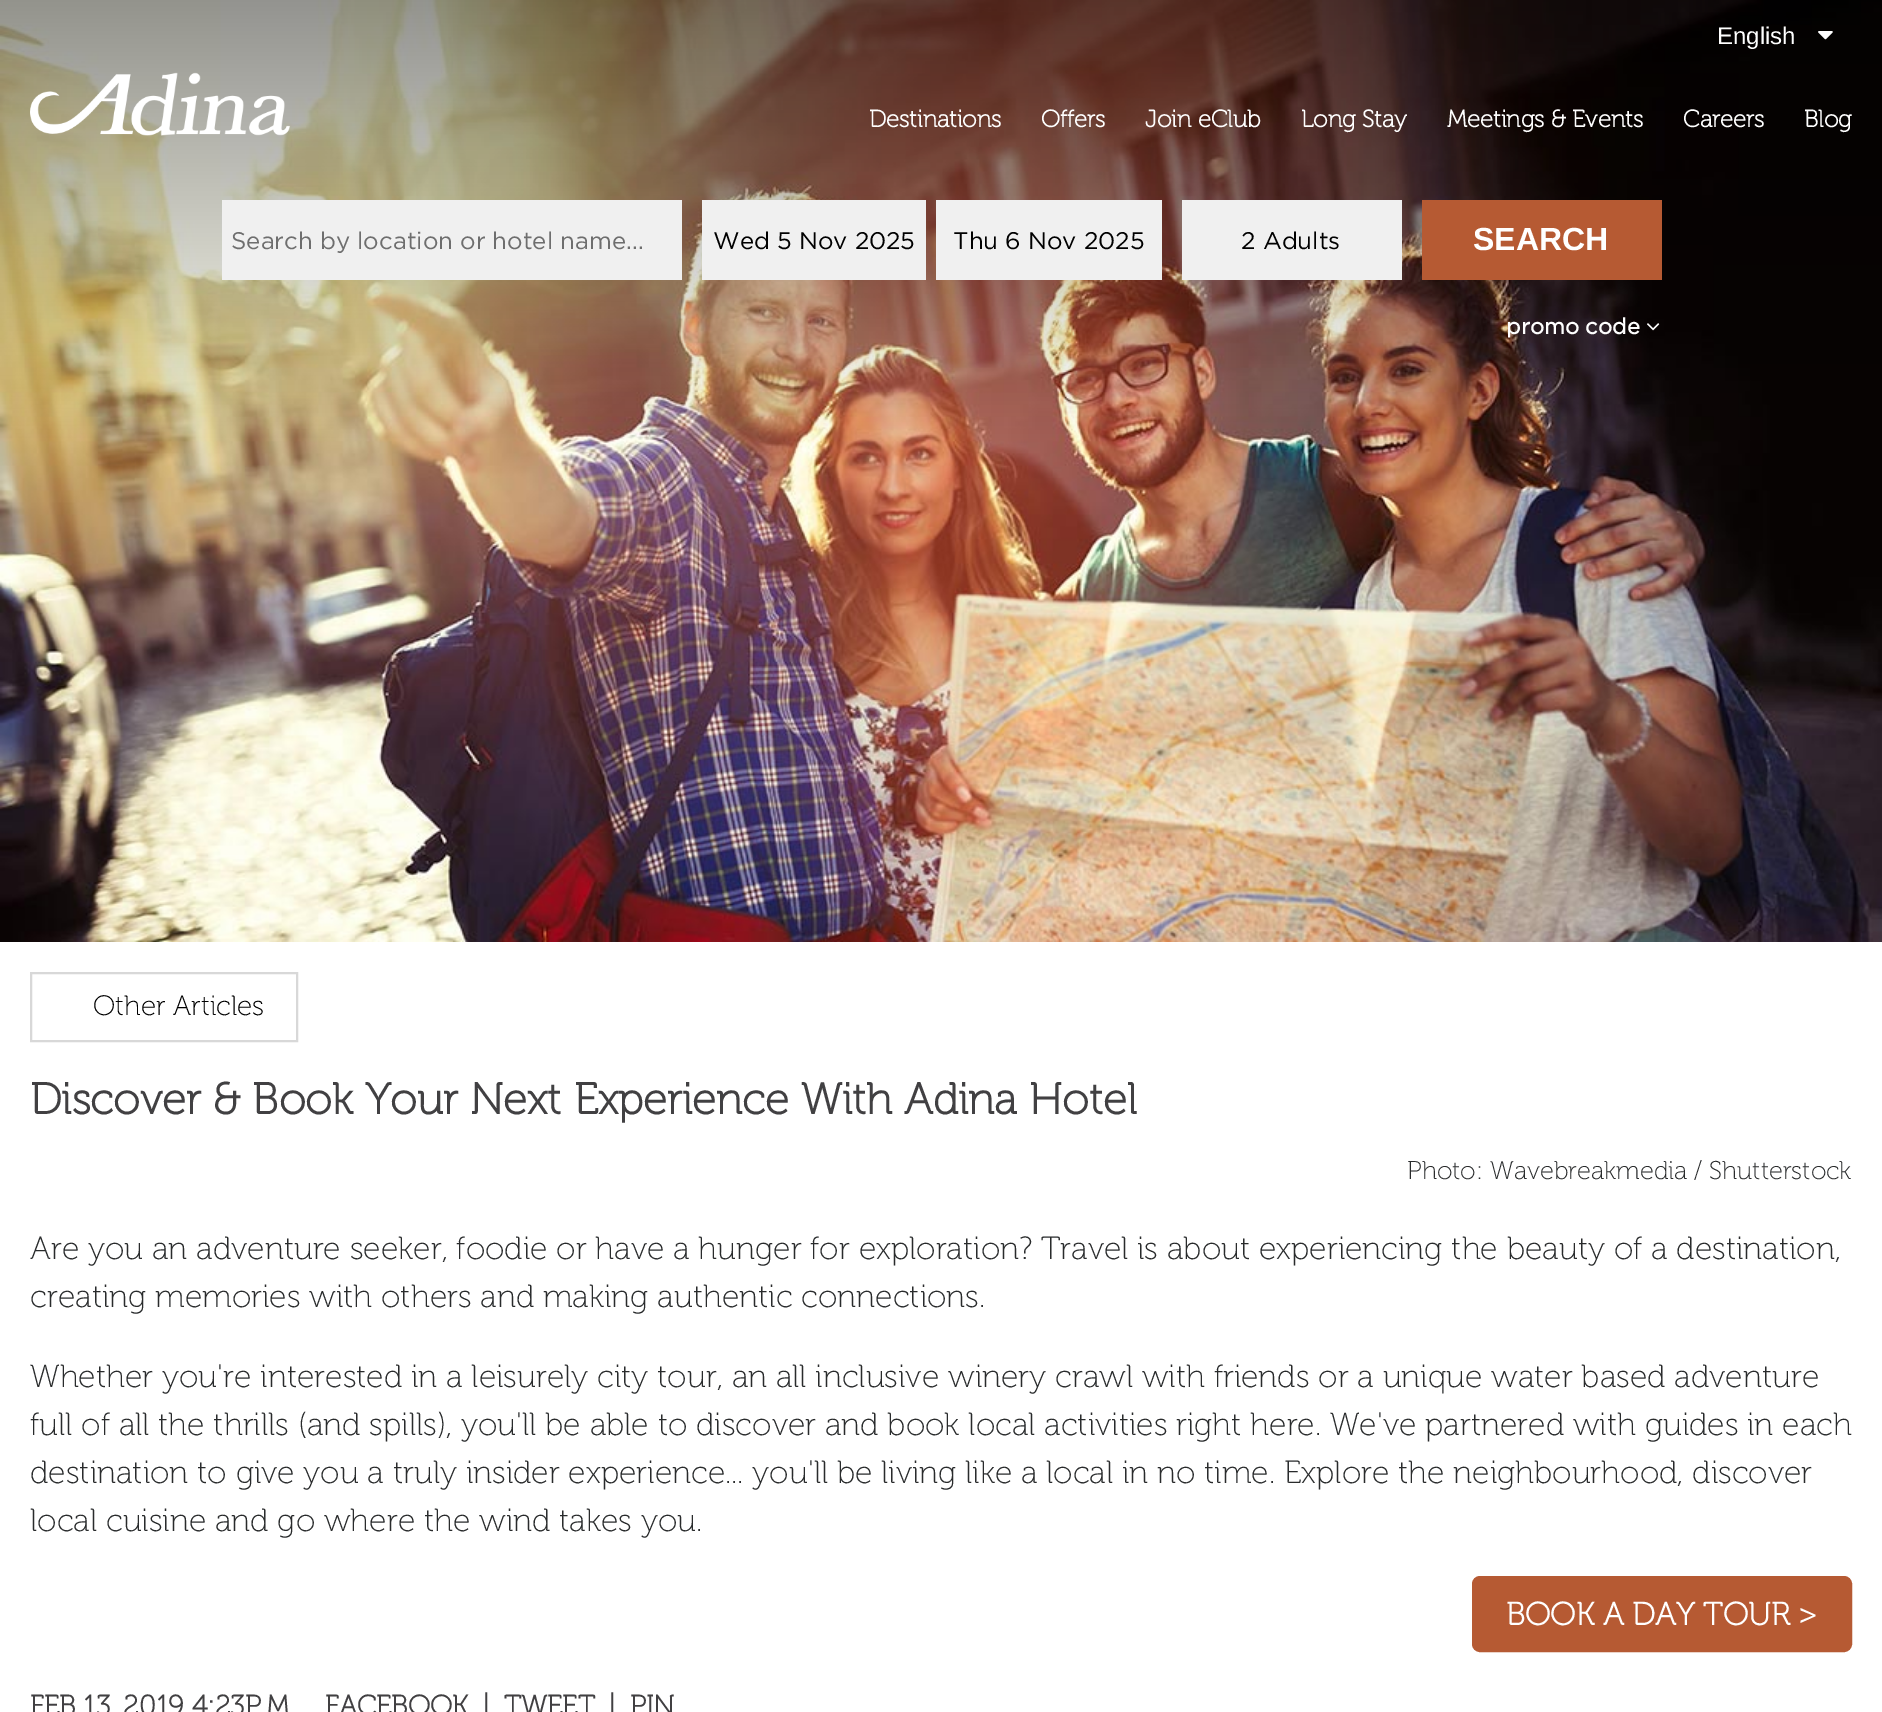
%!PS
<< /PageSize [1882 1712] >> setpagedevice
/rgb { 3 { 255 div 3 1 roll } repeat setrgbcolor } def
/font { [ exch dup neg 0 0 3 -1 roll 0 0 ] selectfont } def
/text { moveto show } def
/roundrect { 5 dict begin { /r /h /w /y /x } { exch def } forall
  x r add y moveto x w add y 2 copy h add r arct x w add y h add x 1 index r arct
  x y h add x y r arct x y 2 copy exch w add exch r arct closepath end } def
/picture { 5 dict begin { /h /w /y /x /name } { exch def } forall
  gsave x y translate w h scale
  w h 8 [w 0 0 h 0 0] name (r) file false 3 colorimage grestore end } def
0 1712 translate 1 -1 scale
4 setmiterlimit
255 255 255 rgb
0 0 1882 1712 rectfill
(img_01.rgb) 0 0 1882 942 picture
(img_02.rgb) 1818 31 15 9 picture
(img_03.rgb) 30 72 260 64 picture
240 240 240 rgb
222 200 460 80 rectfill
702 200 224 80 rectfill
936 200 226 80 rectfill
1182 200 220 80 rectfill
182 90 51 rgb
1422 200 240 80 rectfill
(img_04.rgb) 1647 323 13 8 picture
216 216 216 rgb
2 setlinewidth
31 973 266 68 rectstroke
182 90 51 rgb
1473 1577 378 74 7 roundrect gsave fill grestore
stroke
/LiberationSans-Regular 24 font
255 255 255 rgb
(English) 1717 44 text
/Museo-Bold 24 font
(Destinations) 869 127 text
(Offers) 1041 127 text
(Join eClub) 1145 127 text
(Long Stay) 1301 127 text
(Meetings & Events) 1447 127 text
(Careers) 1683 127 text
(Blog) 1804 127 text
/Gotham-Regular 24 font
110 110 110 rgb
(Search by location or hotel name...) 231 249 text
0 0 0 rgb
(Wed 5 Nov 2025) 713 249 text
(Thu 6 Nov 2025) 953 249 text
(2 Adults) 1241 249 text
/LiberationSans-Bold 32 font
255 255 255 rgb
(SEARCH) 1473 250 text
/Gotham-Bold 22 font
(promo code) 1506 334 text
/Museo-ExtraLight 28 font
0 0 0 rgb
(Other Articles) 93 1015 text
/Museo-Bold 44 font
65 64 66 rgb
(Discover & Book Your Next Experience With Adina Hotel) 30 1114 text
/Museo-ExtraLight 25.6 font
41 43 44 rgb
(Photo: Wavebreakmedia / Shutterstock) 1407 1179 text
/Museo-ExtraLight 32 font
(Are you an adventure seeker, foodie or have a hunger for exploration? Travel is about experiencing the beauty of a destination,) 30 1259 text
(creating memories with others and making authentic connections.) 30 1307 text
(Whether you're interested in a leisurely city tour, an all inclusive winery crawl with friends or a unique water based adventure) 30 1387 text
(full of all the thrills \(and spills\), you'll be able to discover and book local activities right here. We've partnered with guides in each) 30 1435 text
(destination to give you a truly insider experience... you'll be living like a local in no time. Explore the neighbourhood, discover) 30 1483 text
(local cuisine and go where the wind takes you.) 30 1531 text
/Museo-Bold 32 font
255 255 255 rgb
(BOOK A DAY TOUR >) 1506 1625 text
/Museo-Bold 28 font
65 64 66 rgb
(FEB 13, 2019 4:23P.M) 30 1715 text
(FACEBOOK) 325 1715 text
(|) 482 1715 text
(TWEET) 504 1715 text
(|) 608 1715 text
(PIN) 630 1715 text
showpage
